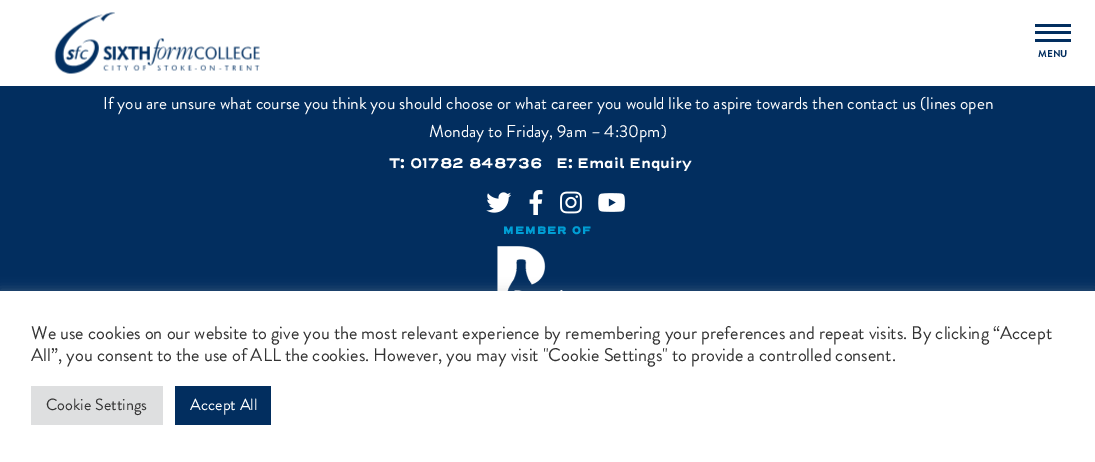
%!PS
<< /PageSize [1095 462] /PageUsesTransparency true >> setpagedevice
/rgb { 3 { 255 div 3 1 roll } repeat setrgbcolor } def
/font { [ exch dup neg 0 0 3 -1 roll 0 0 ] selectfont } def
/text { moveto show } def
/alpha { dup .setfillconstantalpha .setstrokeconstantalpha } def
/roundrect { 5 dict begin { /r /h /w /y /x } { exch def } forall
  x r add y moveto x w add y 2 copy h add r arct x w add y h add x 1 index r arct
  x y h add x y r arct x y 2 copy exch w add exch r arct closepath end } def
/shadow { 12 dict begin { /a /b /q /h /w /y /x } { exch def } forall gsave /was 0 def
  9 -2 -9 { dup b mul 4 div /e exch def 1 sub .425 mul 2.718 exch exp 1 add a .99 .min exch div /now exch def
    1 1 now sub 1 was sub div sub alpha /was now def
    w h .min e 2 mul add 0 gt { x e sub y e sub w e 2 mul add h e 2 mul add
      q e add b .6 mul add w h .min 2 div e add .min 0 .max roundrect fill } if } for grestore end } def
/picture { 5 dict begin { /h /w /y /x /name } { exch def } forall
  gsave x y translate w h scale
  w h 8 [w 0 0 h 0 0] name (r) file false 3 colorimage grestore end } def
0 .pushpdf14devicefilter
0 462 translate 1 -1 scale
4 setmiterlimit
2 46 95 rgb
0 0 1095 462 rectfill
255 255 255 rgb
0 0 1095 86 rectfill
(img_01.rgb) 54 12 206 62 picture
2 46 95 rgb
1035 39 36 3 rectfill
1035 24 36 3 rectfill
1035 31 36 3 rectfill
(img_02.rgb) 486 192 25 21 picture
(img_03.rgb) 529 190 14 25 picture
(img_04.rgb) 560 191 22 23 picture
(img_05.rgb) 598 193 27 19 picture
(img_06.rgb) 497 246 66 45 picture
172 171 171 rgb
0 290 1095 171 0 6 0.3 shadow
255 255 255 rgb
0 291 1095 171 rectfill
222 223 224 rgb
31 386 132 39 rectfill
2 46 95 rgb
175 386 96 39 rectfill
/BrandonGrotesque-Bold 10 font
(MENU) 1038 57 text
/BrandonGrotesque-Regular 17.28 font
255 255 255 rgb
(If you are unsure what course you think you should choose or what career you would like to aspire towards then contact us \(lines open) 103 109 text
(Monday to Friday, 9am – 4:30pm\)) 429 137 text
/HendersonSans-Bold 13.75 font
(T: 01782 848736) 389 168 text
(E: Email Enquiry) 556 168 text
/HendersonSans-Black 10.75 font
0 158 212 rgb
503 234 moveto 0.75 0 (MEMBER OF) ashow
/BrandonGrotesque-Regular 18.33 font
51 51 51 rgb
(We use cookies on our website to give you the most relevant experience by remembering your preferences and repeat visits. By clicking “Accept) 31 339 text
(All”, you consent to the use of ALL the cookies. However, you may visit "Cookie Settings" to provide a controlled consent.) 31 361 text
/BrandonGrotesque-Regular 16.25 font
(Cookie Settings) 46 410 text
255 255 255 rgb
(Accept All) 190 410 text
.poppdf14devicefilter showpage
